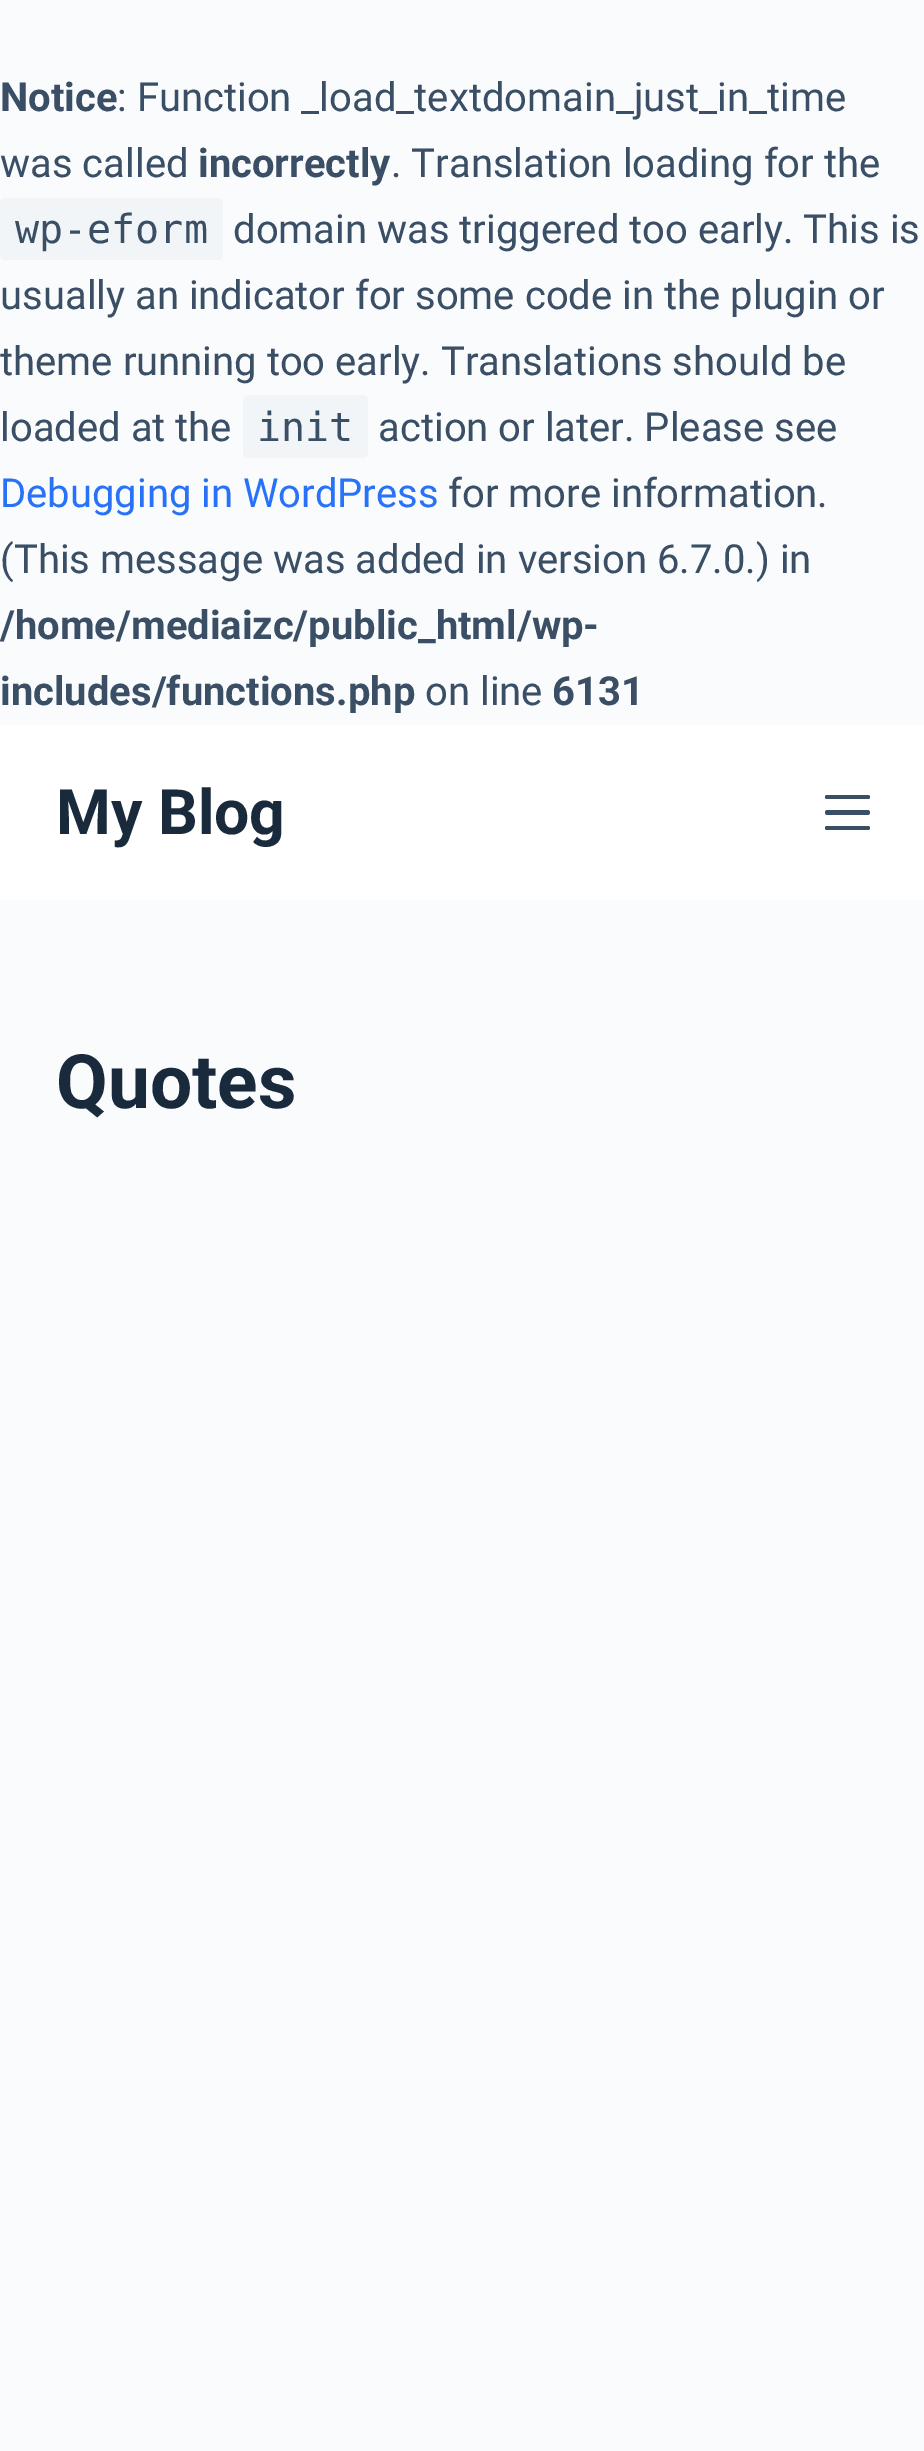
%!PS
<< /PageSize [924 2451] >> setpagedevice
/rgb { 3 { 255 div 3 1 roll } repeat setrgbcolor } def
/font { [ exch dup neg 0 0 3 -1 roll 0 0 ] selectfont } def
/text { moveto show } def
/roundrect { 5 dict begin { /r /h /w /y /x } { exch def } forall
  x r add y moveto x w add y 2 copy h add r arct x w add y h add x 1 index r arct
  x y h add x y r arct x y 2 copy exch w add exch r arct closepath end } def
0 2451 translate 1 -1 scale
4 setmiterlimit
250 251 252 rgb
0 0 924 2451 rectfill
242 245 247 rgb
0 198 223 62 5 roundrect fill
243 395 125 63 5 roundrect fill
255 255 255 rgb
0 725 924 175 rectfill
58 79 102 rgb
825 795 45 4 2 roundrect fill
825 810 45 5 2.5 roundrect fill
825 826 45 4 2 roundrect fill
/Roboto-Bold 40 font
(Notice) 0 111 text
/Roboto-Regular 40 font
(: Function _load_textdomain_just_in_time) 117 111 text
(was called) 0 177 text
/Roboto-Bold 40 font
(incorrectly) 198 177 text
/Roboto-Regular 40 font
(. Translation loading for the) 391 177 text
/DejaVuSansMono-Regular 40 font
(wp-eform) 15 243 text
/Roboto-Regular 40 font
(domain was triggered too early. This is) 233 243 text
(usually an indicator for some code in the plugin or) 0 309 text
(theme running too early. Translations should be) 0 375 text
(loaded at the) 0 441 text
/DejaVuSansMono-Regular 40 font
(init) 257 441 text
/Roboto-Regular 40 font
(action or later. Please see) 378 441 text
40 114 250 rgb
(Debugging in WordPress) 0 507 text
58 79 102 rgb
(for more information.) 448 507 text
(\(This message was added in version 6.7.0.\) in) 0 573 text
/Roboto-Bold 40 font
(/home/mediaizc/public_html/wp-) 0 639 text
(includes/functions.php) 0 705 text
/Roboto-Regular 40 font
(on line) 425 705 text
/Roboto-Bold 40 font
(6131) 552 705 text
/Roboto-Bold 62.5 font
25 42 61 rgb
(My Blog) 56 834 text
/Roboto-Bold 75 font
(Quotes) 56 1108 text
showpage
